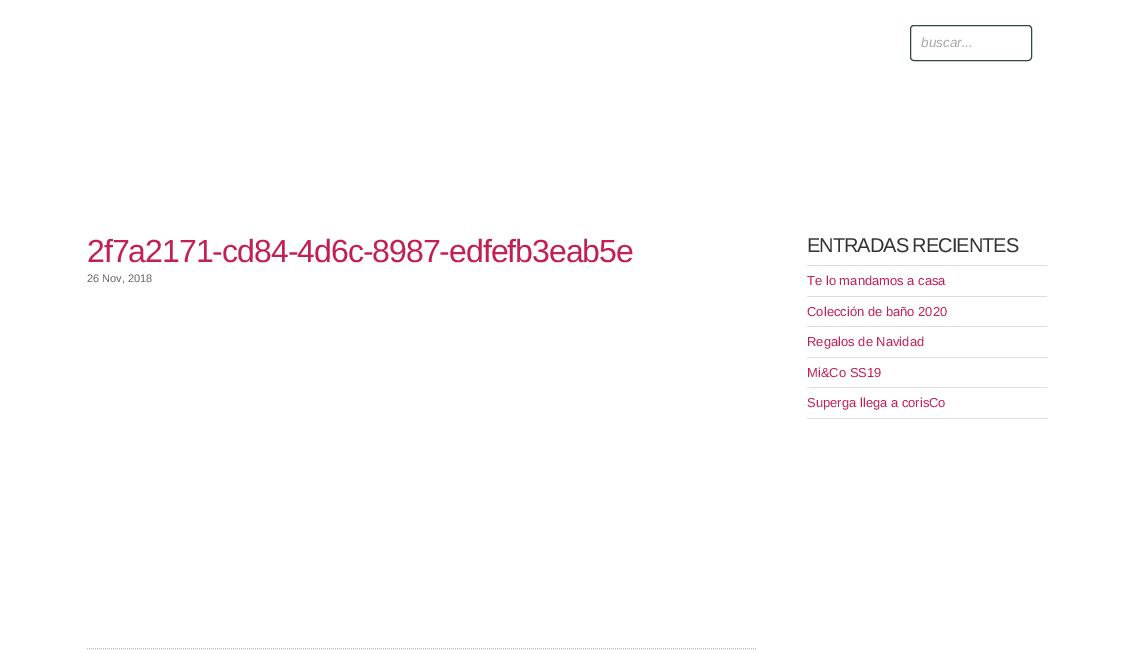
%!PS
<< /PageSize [1134 653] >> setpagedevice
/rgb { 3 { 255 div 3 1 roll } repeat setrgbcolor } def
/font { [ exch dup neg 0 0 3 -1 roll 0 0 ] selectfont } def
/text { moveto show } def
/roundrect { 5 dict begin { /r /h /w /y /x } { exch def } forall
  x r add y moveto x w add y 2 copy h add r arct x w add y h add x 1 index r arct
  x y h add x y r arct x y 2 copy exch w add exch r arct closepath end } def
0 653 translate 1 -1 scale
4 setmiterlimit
255 255 255 rgb
0 0 1134 653 rectfill
46 72 73 rgb
910.5 25.5 121 35 3.5 roundrect stroke
187 187 187 rgb
[1 1] 0 setdash
87 648.5 moveto 670 0 rlineto stroke
221 221 221 rgb
807 265 240 1 rectfill
807 296 240 1 rectfill
807 326 240 1 rectfill
807 357 240 1 rectfill
807 387 240 1 rectfill
807 418 240 1 rectfill
/LiberationSans-Italic 13.5 font
168 168 168 rgb
(buscar...) 921 47 text
/LiberationSans-Regular 32 font
196 31 84 rgb
87 262 moveto -1 0 (2f7a2171-cd84-4d6c-8987-edfefb3eab5e) ashow
/LiberationSans-Regular 11 font
102 102 102 rgb
(26 Nov, 2018) 87 282 text
/LiberationSans-Regular 20 font
51 51 51 rgb
807 252 moveto -1 0 (ENTRADAS RECIENTES) ashow
/LiberationSans-Regular 13 font
196 31 84 rgb
(Te lo mandamos a casa) 807 285 text
(Colección de baño 2020) 807 316 text
(Regalos de Navidad) 807 346 text
(Mi&Co SS19) 807 377 text
(Superga llega a corisCo) 807 407 text
showpage
